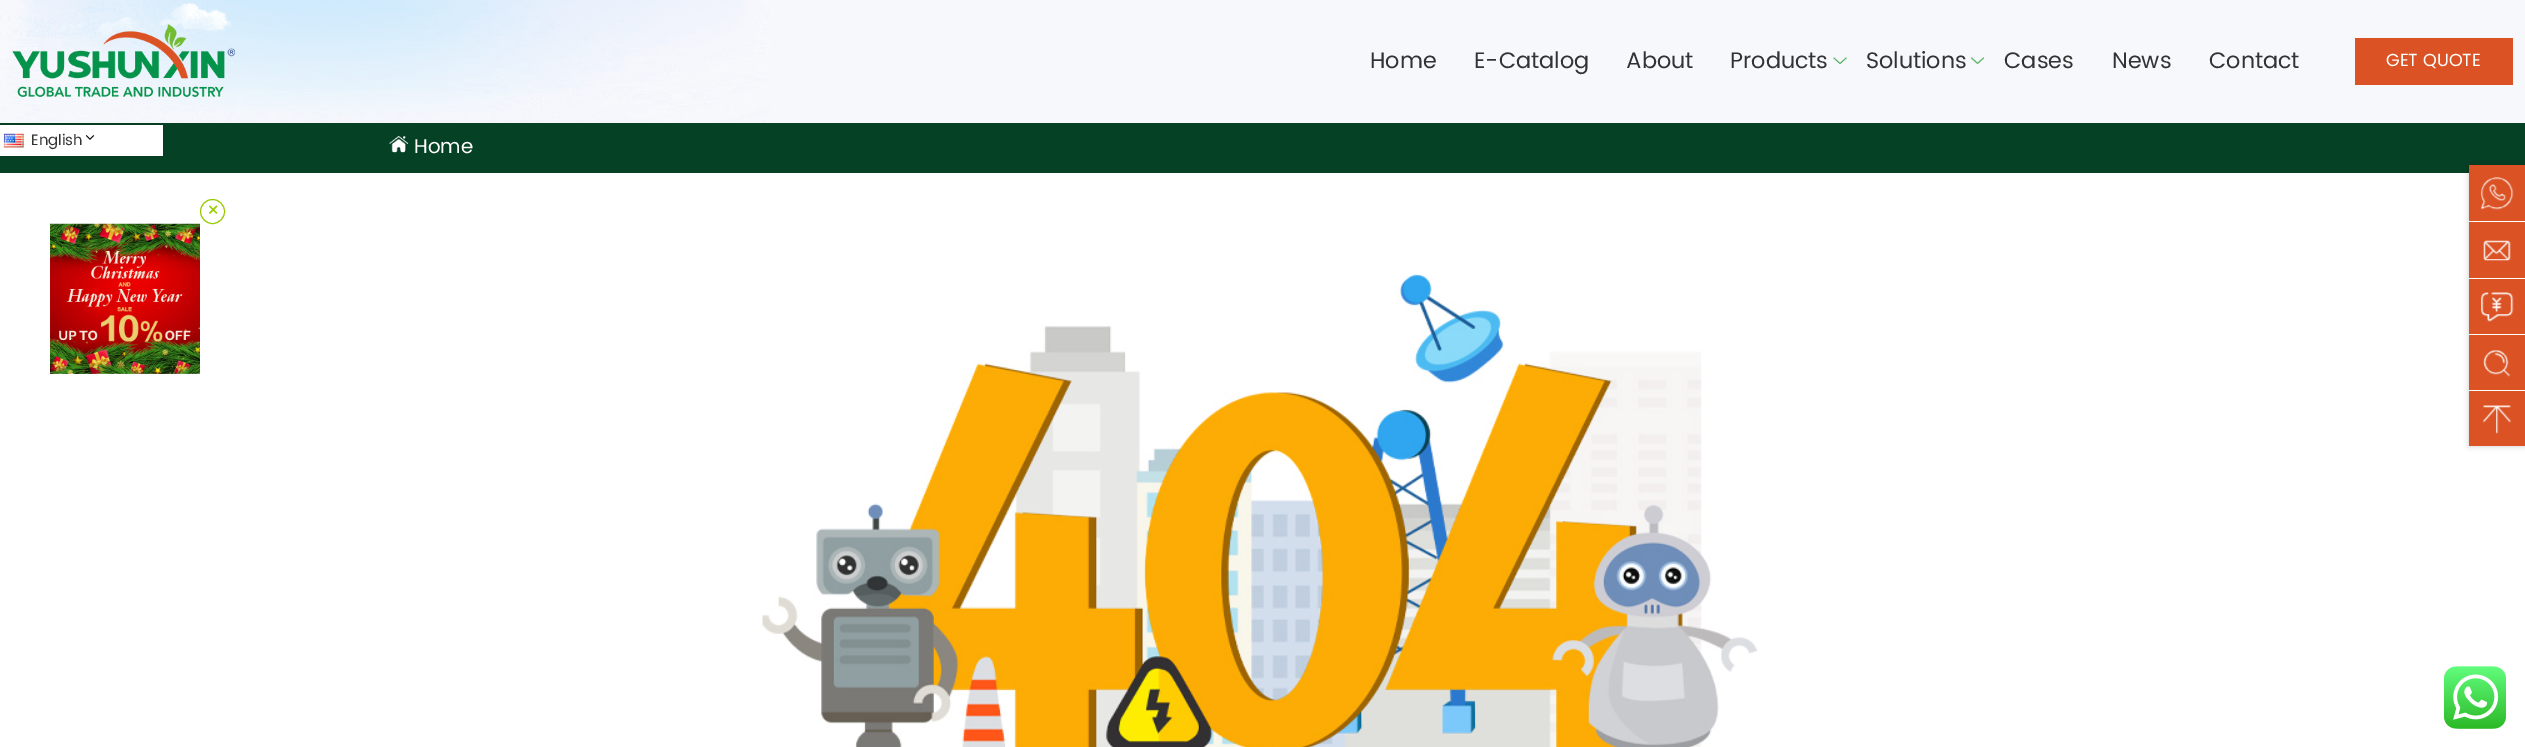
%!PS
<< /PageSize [2525 747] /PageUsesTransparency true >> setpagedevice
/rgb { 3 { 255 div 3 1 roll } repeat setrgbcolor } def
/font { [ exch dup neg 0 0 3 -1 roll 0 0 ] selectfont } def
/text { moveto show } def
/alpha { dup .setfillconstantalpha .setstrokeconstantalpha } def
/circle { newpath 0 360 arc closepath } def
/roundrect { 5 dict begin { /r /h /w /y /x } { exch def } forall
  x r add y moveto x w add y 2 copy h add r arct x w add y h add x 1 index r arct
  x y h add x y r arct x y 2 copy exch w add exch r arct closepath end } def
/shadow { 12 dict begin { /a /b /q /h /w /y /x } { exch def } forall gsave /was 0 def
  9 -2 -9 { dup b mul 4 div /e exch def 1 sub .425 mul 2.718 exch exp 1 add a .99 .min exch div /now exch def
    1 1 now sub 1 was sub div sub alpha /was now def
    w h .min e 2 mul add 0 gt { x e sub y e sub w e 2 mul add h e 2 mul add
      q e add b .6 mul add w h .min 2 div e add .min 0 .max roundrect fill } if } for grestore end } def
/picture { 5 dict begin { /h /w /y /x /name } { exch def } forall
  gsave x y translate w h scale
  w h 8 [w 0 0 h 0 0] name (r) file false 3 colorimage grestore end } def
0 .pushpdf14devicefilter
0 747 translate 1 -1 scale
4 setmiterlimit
255 255 255 rgb
0 0 2525 747 rectfill
247 248 252 rgb
0 0 2525 123 rectfill
(img_01.rgb) 0 0 770 123 picture
(img_02.rgb) 12 24 223 73 picture
(img_03.rgb) 1833 57 14 7 picture
(img_04.rgb) 1971 57 14 7 picture
219 83 37 rgb
2355 38 158 47 rectfill
5 65 36 rgb
0 123 2525 50 rectfill
0 0 0 rgb
0 125 163 31 0 1 0.2 shadow
255 255 255 rgb
0 125 163 31 rectfill
(img_05.rgb) 3 133 21 15 picture
(img_06.rgb) 85 135 10 5 picture
(img_07.rgb) 389 136 20 17 picture
153 204 0 rgb
212.5 211.5 12 circle stroke
(img_08.rgb) 50 223 150 151 picture
0 0 0 rgb
2469 165 56 281 0 3 0.2 shadow
219 83 37 rgb
2469 165 56 281 rectfill
(img_09.rgb) 2481 177 33 33 picture
255 255 255 rgb
2469 221 56 1 rectfill
(img_10.rgb) 2483 240 28 21 picture
2469 278 56 1 rectfill
(img_11.rgb) 2481 292 33 30 picture
2469 334 56 1 rectfill
(img_12.rgb) 2483 350 28 27 picture
2469 390 56 1 rectfill
(img_13.rgb) 2483 405 29 29 picture
(img_14.rgb) 762 274 996 473 picture
(img_15.rgb) 2444 666 62 63 picture
/Poppins-Regular 22.5 font
51 51 51 rgb
(Home) 1370 68 text
(E-Catalog) 1474 68 text
(About) 1626 68 text
(Products) 1730 68 text
(Solutions) 1866 68 text
(Cases) 2004 68 text
(News) 2112 68 text
(Contact) 2209 68 text
/Poppins-Regular 17.5 font
255 255 255 rgb
(GET QUOTE) 2386 66 text
/Poppins-Regular 15 font
51 51 51 rgb
(English) 31 145 text
/Poppins-Regular 20 font
255 255 255 rgb
(Home) 414 153 text
153 204 0 rgb
(×) 206 217 text
.poppdf14devicefilter showpage
